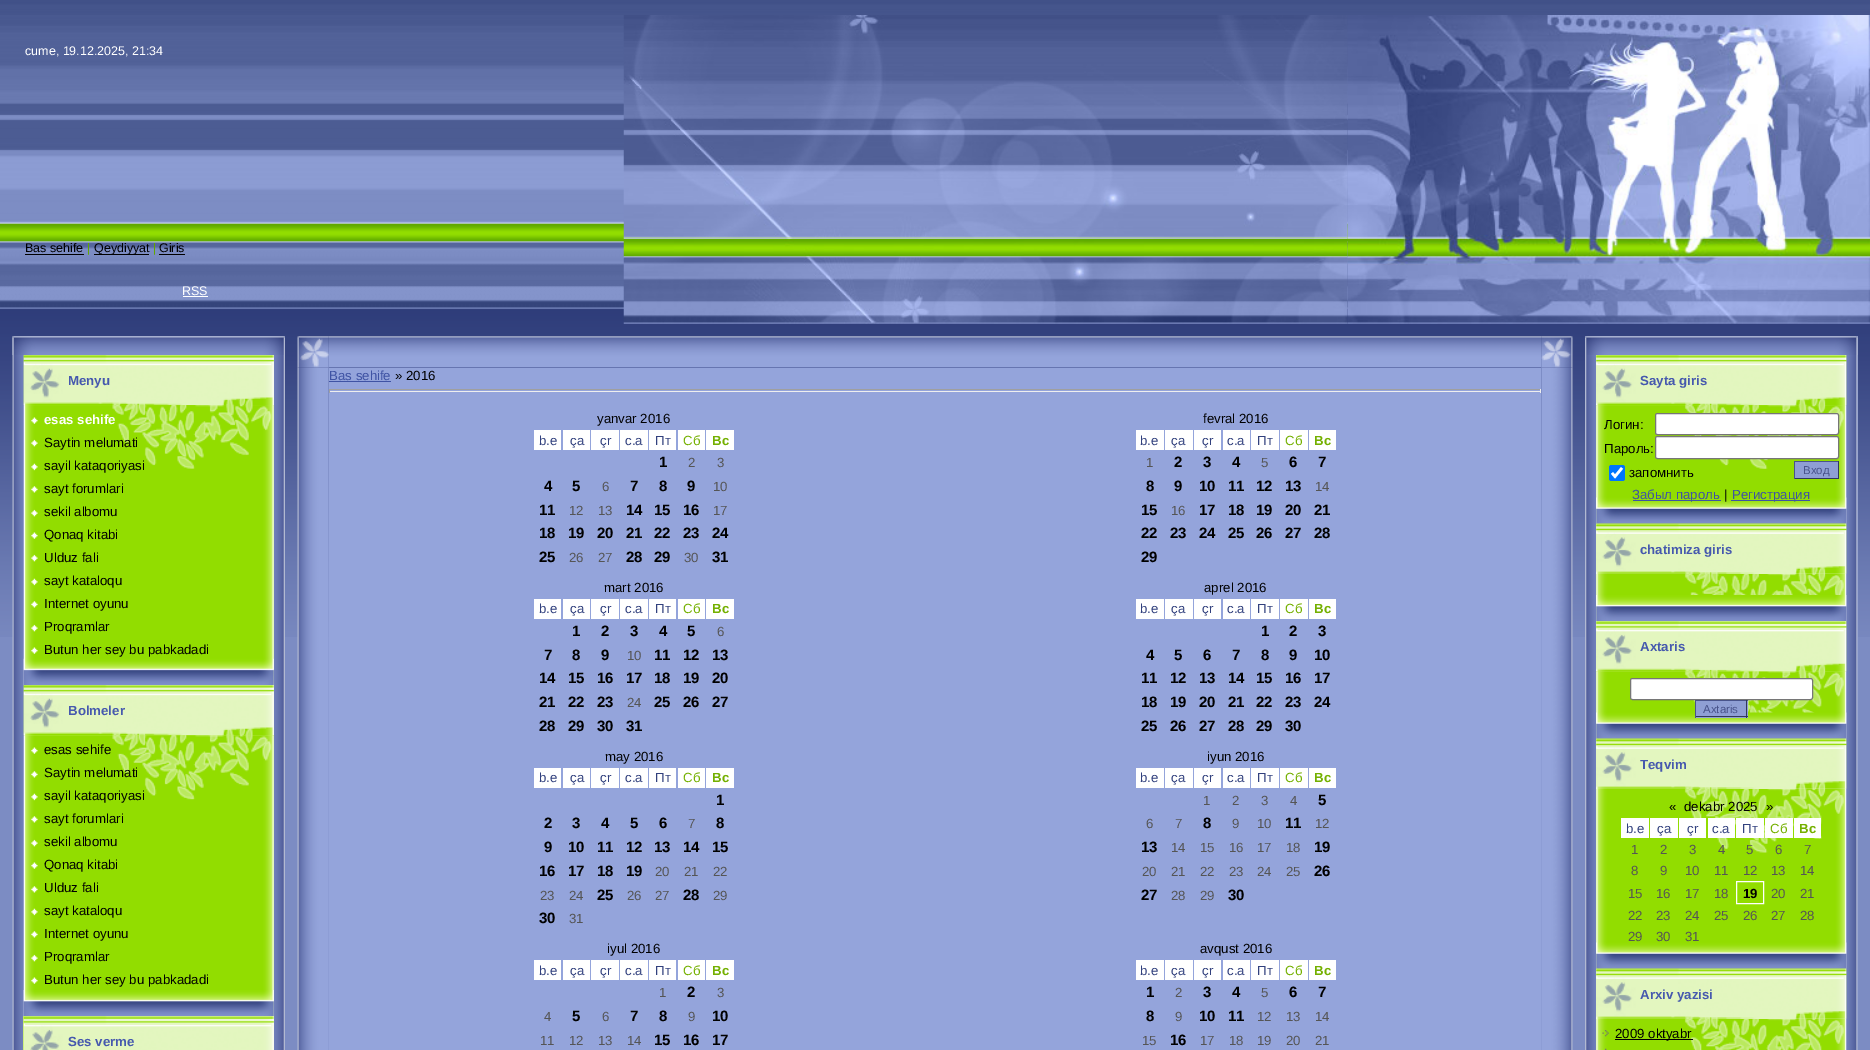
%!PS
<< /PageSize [1870 1050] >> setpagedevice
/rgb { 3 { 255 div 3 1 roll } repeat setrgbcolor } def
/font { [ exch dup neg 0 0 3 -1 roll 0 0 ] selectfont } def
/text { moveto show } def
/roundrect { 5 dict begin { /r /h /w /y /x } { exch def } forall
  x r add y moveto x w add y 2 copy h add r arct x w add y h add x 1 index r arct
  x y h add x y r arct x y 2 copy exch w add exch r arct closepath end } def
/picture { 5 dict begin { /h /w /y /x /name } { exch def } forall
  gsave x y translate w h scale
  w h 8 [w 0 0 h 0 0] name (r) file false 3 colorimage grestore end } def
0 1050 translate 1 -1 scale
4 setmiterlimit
124 140 195 rgb
0 0 1870 1050 rectfill
(img_01.rgb) 0 0 1870 637 picture
(img_02.rgb) 623 15 725 72 picture
(img_04.rgb) 623 86 725 152 picture
(img_05.rgb) 623 237 725 21 picture
(img_06.rgb) 623 257 725 67 picture
(img_03.rgb) 1347 15 523 309 picture
0 0 0 rgb
25 254 59 1 rectfill
94 254 55 1 rectfill
159 254 26 1 rectfill
255 255 255 rgb
183 296 25 1 rectfill
(img_07.rgb) 12 336 273 714 picture
(img_08.rgb) 12 336 273 19 picture
(img_09.rgb) 23 355 251 330 picture
(img_10.rgb) 23 355 251 50 picture
(img_11.rgb) 23 658 251 27 picture
(img_12.rgb) 31 417 7 7 picture
(img_13.rgb) 31 439 7 8 picture
(img_14.rgb) 31 463 7 8 picture
(img_15.rgb) 31 486 7 7 picture
(img_13.rgb) 31 509 7 8 picture
(img_12.rgb) 31 532 7 7 picture
(img_13.rgb) 31 554 7 8 picture
(img_14.rgb) 31 578 7 8 picture
(img_15.rgb) 31 601 7 7 picture
(img_13.rgb) 31 624 7 8 picture
(img_12.rgb) 31 647 7 7 picture
(img_16.rgb) 23 685 251 331 picture
(img_17.rgb) 23 685 251 50 picture
(img_18.rgb) 23 990 251 26 picture
(img_12.rgb) 31 747 7 7 picture
(img_15.rgb) 31 771 7 7 picture
(img_14.rgb) 31 793 7 8 picture
(img_15.rgb) 31 816 7 7 picture
(img_13.rgb) 31 839 7 8 picture
(img_12.rgb) 31 862 7 7 picture
(img_15.rgb) 31 886 7 7 picture
(img_14.rgb) 31 908 7 8 picture
(img_15.rgb) 31 931 7 7 picture
(img_13.rgb) 31 954 7 8 picture
(img_12.rgb) 31 977 7 7 picture
198 239 103 rgb
23 1016 1 34 rectfill
227 246 191 rgb
24 1016 250 34 rectfill
(img_19.rgb) 23 1016 251 34 picture
(img_21.rgb) 328 336 1214 32 picture
(img_23.rgb) 297 367 32 683 picture
(img_20.rgb) 297 336 32 32 picture
(img_24.rgb) 1541 367 32 683 picture
(img_22.rgb) 1541 336 32 32 picture
148 164 219 rgb
329 368 1212 682 rectfill
63 83 164 rgb
329 381 62 1 rectfill
159 159 159 rgb
329 389 1212 1 rectfill
238 238 238 rgb
1540 389 1 4 rectfill
329 391 1212 1 rectfill
159 159 159 rgb
329 389 1 4 rectfill
255 255 255 rgb
534 430 27 20 rectfill
563 430 27 20 rectfill
591 430 28 20 rectfill
620 430 28 20 rectfill
649 430 27 20 rectfill
678 430 27 20 rectfill
706 430 28 20 rectfill
1136 430 28 20 rectfill
1165 430 28 20 rectfill
1194 430 27 20 rectfill
1223 430 27 20 rectfill
1251 430 28 20 rectfill
1280 430 28 20 rectfill
1309 430 27 20 rectfill
534 599 27 20 rectfill
563 599 27 20 rectfill
591 599 28 20 rectfill
620 599 28 20 rectfill
649 599 27 20 rectfill
678 599 27 20 rectfill
706 599 28 20 rectfill
1136 599 28 20 rectfill
1165 599 28 20 rectfill
1194 599 27 20 rectfill
1223 599 27 20 rectfill
1251 599 28 20 rectfill
1280 599 28 20 rectfill
1309 599 27 20 rectfill
534 768 27 20 rectfill
563 768 27 20 rectfill
591 768 28 20 rectfill
620 768 28 20 rectfill
649 768 27 20 rectfill
678 768 27 20 rectfill
706 768 28 20 rectfill
1136 768 28 20 rectfill
1165 768 28 20 rectfill
1194 768 27 20 rectfill
1223 768 27 20 rectfill
1251 768 28 20 rectfill
1280 768 28 20 rectfill
1309 768 27 20 rectfill
534 960 27 20 rectfill
563 960 27 20 rectfill
591 960 28 20 rectfill
620 960 28 20 rectfill
649 960 27 20 rectfill
678 960 27 20 rectfill
706 960 28 20 rectfill
1136 960 28 20 rectfill
1165 960 28 20 rectfill
1194 960 27 20 rectfill
1223 960 27 20 rectfill
1251 960 28 20 rectfill
1280 960 28 20 rectfill
1309 960 27 20 rectfill
130 146 204 rgb
1585 336 273 714 rectfill
(img_25.rgb) 1585 336 273 714 picture
(img_26.rgb) 1585 336 273 19 picture
(img_27.rgb) 1596 355 251 169 picture
(img_28.rgb) 1596 355 251 50 picture
(img_29.rgb) 1596 497 251 27 picture
255 255 255 rgb
1655.5 413.5 183 21 2 roundrect gsave fill grestore
118 118 118 rgb
stroke
255 255 255 rgb
1655.5 436.5 183 22 2 roundrect gsave fill grestore
118 118 118 rgb
stroke
0 117 255 rgb
1609 465 16 16 2.5 roundrect fill
255 255 255 rgb
2.6 setlinewidth
1612 473 moveto 3 3.5 rlineto 7 -8.5 rlineto stroke
143 159 212 rgb
1795 462 43 16 rectfill
73 84 139 rgb
1794 461 45 1 rectfill
49 56 93 rgb
1838 461 1 18 rectfill
1794 478 45 1 rectfill
73 84 139 rgb
1794 461 1 18 rectfill
63 83 164 rgb
1633 500 88 1 rectfill
1731 500 79 1 rectfill
(img_30.rgb) 1596 523 251 99 picture
227 246 191 rgb
1596 524 250 50 rectfill
(img_31.rgb) 1596 523 251 51 picture
(img_32.rgb) 1596 595 251 27 picture
(img_33.rgb) 1596 621 251 118 picture
1596 621 250 50 rectfill
(img_34.rgb) 1596 621 251 51 picture
(img_35.rgb) 1596 712 251 27 picture
255 255 255 rgb
1630.5 678.5 182 21 2 roundrect gsave fill grestore
118 118 118 rgb
1 setlinewidth
stroke
143 159 212 rgb
1696 701 52 17 rectfill
73 84 139 rgb
1695 700 53 1 rectfill
49 56 93 rgb
1746 700 1 18 rectfill
1695 716 53 1 rectfill
73 84 139 rgb
1695 700 1 18 rectfill
(img_36.rgb) 1596 738 251 231 picture
227 246 191 rgb
1596 739 250 50 rectfill
(img_31.rgb) 1596 738 251 51 picture
(img_29.rgb) 1596 942 251 27 picture
255 255 255 rgb
1621 818 28 20 rectfill
1650 818 28 20 rectfill
1679 818 27 20 rectfill
1708 818 27 20 rectfill
1736 818 28 20 rectfill
1765 818 28 20 rectfill
1794 818 27 20 rectfill
1736.5 881.5 27 22 rectstroke
(img_37.rgb) 1596 968 251 82 picture
227 246 191 rgb
1596 969 250 50 rectfill
(img_31.rgb) 1596 968 251 51 picture
(img_38.rgb) 1602 1030 7 7 picture
0 0 0 rgb
1615 1039 78 1 rectfill
(img_39.rgb) 1604 1048 3 2 picture
/LiberationSans-Regular 12.5 font
255 255 255 rgb
(cume, 19.12.2025, 21:34) 25 55 text
0 0 0 rgb
(Bas sehife) 25 252 text
97 168 0 rgb
(|) 87 252 text
0 0 0 rgb
(Qeydiyyat) 94 252 text
97 168 0 rgb
(|) 153 252 text
0 0 0 rgb
(Giris) 159 252 text
255 255 255 rgb
(RSS) 182 295 text
/LiberationSans-Bold 13.25 font
70 89 174 rgb
(Menyu) 68 385 text
255 255 255 rgb
(esas sehife) 44 424 text
/LiberationSans-Regular 13.25 font
0 0 0 rgb
(Saytin melumati) 44 447 text
(sayil kataqoriyasi) 44 470 text
(sayt forumlari) 44 493 text
(sekil albomu) 44 516 text
(Qonaq kitabi) 44 539 text
(Ulduz fali) 44 562 text
(sayt kataloqu) 44 585 text
(Internet oyunu) 44 608 text
(Proqramlar) 44 631 text
(Butun her sey bu pabkadadi) 44 654 text
/LiberationSans-Bold 13.25 font
70 89 174 rgb
(Bolmeler) 68 715 text
/LiberationSans-Regular 13.25 font
0 0 0 rgb
(esas sehife) 44 754 text
(Saytin melumati) 44 777 text
(sayil kataqoriyasi) 44 800 text
(sayt forumlari) 44 823 text
(sekil albomu) 44 846 text
(Qonaq kitabi) 44 869 text
(Ulduz fali) 44 892 text
(sayt kataloqu) 44 915 text
(Internet oyunu) 44 938 text
(Proqramlar) 44 961 text
(Butun her sey bu pabkadadi) 44 984 text
/LiberationSans-Bold 13.25 font
70 89 174 rgb
(Ses verme) 68 1046 text
/LiberationSans-Regular 13.25 font
63 83 164 rgb
(Bas sehife) 329 380 text
0 0 0 rgb
(» 2016) 395 380 text
(yanvar 2016) 597 423 text
50 65 126 rgb
(b.e) 539 445 text
(ça) 570 445 text
(çr) 600 445 text
(c.a) 625 445 text
(Пт) 655 445 text
116 176 0 rgb
(Сб) 683 445 text
/LiberationSans-Bold 13.25 font
(Вс) 712 445 text
/LiberationSans-Bold 15 font
0 0 0 rgb
(1) 659 467 text
/LiberationSans-Regular 13.25 font
85 85 85 rgb
(2) 688 467 text
(3) 717 467 text
/LiberationSans-Bold 15 font
0 0 0 rgb
(4) 544 491 text
(5) 572 491 text
/LiberationSans-Regular 13.25 font
85 85 85 rgb
(6) 602 491 text
/LiberationSans-Bold 15 font
0 0 0 rgb
(7) 630 491 text
(8) 659 491 text
(9) 687 491 text
/LiberationSans-Regular 13.25 font
85 85 85 rgb
(10) 713 491 text
/LiberationSans-Bold 15 font
0 0 0 rgb
(11) 539 515 text
/LiberationSans-Regular 13.25 font
85 85 85 rgb
(12) 569 515 text
(13) 598 515 text
/LiberationSans-Bold 15 font
0 0 0 rgb
(14) 626 515 text
(15) 654 515 text
(16) 683 515 text
/LiberationSans-Regular 13.25 font
85 85 85 rgb
(17) 713 515 text
/LiberationSans-Bold 15 font
0 0 0 rgb
(18) 539 538 text
(19) 568 538 text
(20) 597 538 text
(21) 626 538 text
(22) 654 538 text
(23) 683 538 text
(24) 712 538 text
(25) 539 562 text
/LiberationSans-Regular 13.25 font
85 85 85 rgb
(26) 569 562 text
(27) 598 562 text
/LiberationSans-Bold 15 font
0 0 0 rgb
(28) 626 562 text
(29) 654 562 text
/LiberationSans-Regular 13.25 font
85 85 85 rgb
(30) 684 562 text
/LiberationSans-Bold 15 font
0 0 0 rgb
(31) 712 562 text
/LiberationSans-Regular 13.25 font
(fevral 2016) 1203 423 text
50 65 126 rgb
(b.e) 1140 445 text
(ça) 1171 445 text
(çr) 1202 445 text
(c.a) 1227 445 text
(Пт) 1257 445 text
116 176 0 rgb
(Сб) 1285 445 text
/LiberationSans-Bold 13.25 font
(Вс) 1314 445 text
/LiberationSans-Regular 13.25 font
85 85 85 rgb
(1) 1146 467 text
/LiberationSans-Bold 15 font
0 0 0 rgb
(2) 1174 467 text
(3) 1203 467 text
(4) 1232 467 text
/LiberationSans-Regular 13.25 font
85 85 85 rgb
(5) 1261 467 text
/LiberationSans-Bold 15 font
0 0 0 rgb
(6) 1289 467 text
(7) 1318 467 text
(8) 1146 491 text
(9) 1174 491 text
(10) 1199 491 text
(11) 1228 491 text
(12) 1256 491 text
(13) 1285 491 text
/LiberationSans-Regular 13.25 font
85 85 85 rgb
(14) 1315 491 text
/LiberationSans-Bold 15 font
0 0 0 rgb
(15) 1141 515 text
/LiberationSans-Regular 13.25 font
85 85 85 rgb
(16) 1171 515 text
/LiberationSans-Bold 15 font
0 0 0 rgb
(17) 1199 515 text
(18) 1228 515 text
(19) 1256 515 text
(20) 1285 515 text
(21) 1314 515 text
(22) 1141 538 text
(23) 1170 538 text
(24) 1199 538 text
(25) 1228 538 text
(26) 1256 538 text
(27) 1285 538 text
(28) 1314 538 text
(29) 1141 562 text
/LiberationSans-Regular 13.25 font
(mart 2016) 604 592 text
50 65 126 rgb
(b.e) 539 613 text
(ça) 570 613 text
(çr) 600 613 text
(c.a) 625 613 text
(Пт) 655 613 text
116 176 0 rgb
(Сб) 683 613 text
/LiberationSans-Bold 13.25 font
(Вс) 712 613 text
/LiberationSans-Bold 15 font
0 0 0 rgb
(1) 572 636 text
(2) 601 636 text
(3) 630 636 text
(4) 659 636 text
(5) 687 636 text
/LiberationSans-Regular 13.25 font
85 85 85 rgb
(6) 717 636 text
/LiberationSans-Bold 15 font
0 0 0 rgb
(7) 544 660 text
(8) 572 660 text
(9) 601 660 text
/LiberationSans-Regular 13.25 font
85 85 85 rgb
(10) 627 660 text
/LiberationSans-Bold 15 font
0 0 0 rgb
(11) 654 660 text
(12) 683 660 text
(13) 712 660 text
(14) 539 683 text
(15) 568 683 text
(16) 597 683 text
(17) 626 683 text
(18) 654 683 text
(19) 683 683 text
(20) 712 683 text
(21) 539 707 text
(22) 568 707 text
(23) 597 707 text
/LiberationSans-Regular 13.25 font
85 85 85 rgb
(24) 627 707 text
/LiberationSans-Bold 15 font
0 0 0 rgb
(25) 654 707 text
(26) 683 707 text
(27) 712 707 text
(28) 539 731 text
(29) 568 731 text
(30) 597 731 text
(31) 626 731 text
/LiberationSans-Regular 13.25 font
(aprel 2016) 1204 592 text
50 65 126 rgb
(b.e) 1140 613 text
(ça) 1171 613 text
(çr) 1202 613 text
(c.a) 1227 613 text
(Пт) 1257 613 text
116 176 0 rgb
(Сб) 1285 613 text
/LiberationSans-Bold 13.25 font
(Вс) 1314 613 text
/LiberationSans-Bold 15 font
0 0 0 rgb
(1) 1261 636 text
(2) 1289 636 text
(3) 1318 636 text
(4) 1146 660 text
(5) 1174 660 text
(6) 1203 660 text
(7) 1232 660 text
(8) 1261 660 text
(9) 1289 660 text
(10) 1314 660 text
(11) 1141 683 text
(12) 1170 683 text
(13) 1199 683 text
(14) 1228 683 text
(15) 1256 683 text
(16) 1285 683 text
(17) 1314 683 text
(18) 1141 707 text
(19) 1170 707 text
(20) 1199 707 text
(21) 1228 707 text
(22) 1256 707 text
(23) 1285 707 text
(24) 1314 707 text
(25) 1141 731 text
(26) 1170 731 text
(27) 1199 731 text
(28) 1228 731 text
(29) 1256 731 text
(30) 1285 731 text
/LiberationSans-Regular 13.25 font
(may 2016) 605 761 text
50 65 126 rgb
(b.e) 539 782 text
(ça) 570 782 text
(çr) 600 782 text
(c.a) 625 782 text
(Пт) 655 782 text
116 176 0 rgb
(Сб) 683 782 text
/LiberationSans-Bold 13.25 font
(Вс) 712 782 text
/LiberationSans-Bold 15 font
0 0 0 rgb
(1) 716 805 text
(2) 544 828 text
(3) 572 828 text
(4) 601 828 text
(5) 630 828 text
(6) 659 828 text
/LiberationSans-Regular 13.25 font
85 85 85 rgb
(7) 688 828 text
/LiberationSans-Bold 15 font
0 0 0 rgb
(8) 716 828 text
(9) 544 852 text
(10) 568 852 text
(11) 597 852 text
(12) 626 852 text
(13) 654 852 text
(14) 683 852 text
(15) 712 852 text
(16) 539 876 text
(17) 568 876 text
(18) 597 876 text
(19) 626 876 text
/LiberationSans-Regular 13.25 font
85 85 85 rgb
(20) 655 876 text
(21) 684 876 text
(22) 713 876 text
(23) 540 900 text
(24) 569 900 text
/LiberationSans-Bold 15 font
0 0 0 rgb
(25) 597 900 text
/LiberationSans-Regular 13.25 font
85 85 85 rgb
(26) 627 900 text
(27) 655 900 text
/LiberationSans-Bold 15 font
0 0 0 rgb
(28) 683 900 text
/LiberationSans-Regular 13.25 font
85 85 85 rgb
(29) 713 900 text
/LiberationSans-Bold 15 font
0 0 0 rgb
(30) 539 923 text
/LiberationSans-Regular 13.25 font
85 85 85 rgb
(31) 569 923 text
0 0 0 rgb
(iyun 2016) 1207 761 text
50 65 126 rgb
(b.e) 1140 782 text
(ça) 1171 782 text
(çr) 1202 782 text
(c.a) 1227 782 text
(Пт) 1257 782 text
116 176 0 rgb
(Сб) 1285 782 text
/LiberationSans-Bold 13.25 font
(Вс) 1314 782 text
/LiberationSans-Regular 13.25 font
85 85 85 rgb
(1) 1203 805 text
(2) 1232 805 text
(3) 1261 805 text
(4) 1290 805 text
/LiberationSans-Bold 15 font
0 0 0 rgb
(5) 1318 805 text
/LiberationSans-Regular 13.25 font
85 85 85 rgb
(6) 1146 828 text
(7) 1175 828 text
/LiberationSans-Bold 15 font
0 0 0 rgb
(8) 1203 828 text
/LiberationSans-Regular 13.25 font
85 85 85 rgb
(9) 1232 828 text
(10) 1257 828 text
/LiberationSans-Bold 15 font
0 0 0 rgb
(11) 1285 828 text
/LiberationSans-Regular 13.25 font
85 85 85 rgb
(12) 1315 828 text
/LiberationSans-Bold 15 font
0 0 0 rgb
(13) 1141 852 text
/LiberationSans-Regular 13.25 font
85 85 85 rgb
(14) 1171 852 text
(15) 1200 852 text
(16) 1229 852 text
(17) 1257 852 text
(18) 1286 852 text
/LiberationSans-Bold 15 font
0 0 0 rgb
(19) 1314 852 text
/LiberationSans-Regular 13.25 font
85 85 85 rgb
(20) 1142 876 text
(21) 1171 876 text
(22) 1200 876 text
(23) 1229 876 text
(24) 1257 876 text
(25) 1286 876 text
/LiberationSans-Bold 15 font
0 0 0 rgb
(26) 1314 876 text
(27) 1141 900 text
/LiberationSans-Regular 13.25 font
85 85 85 rgb
(28) 1171 900 text
(29) 1200 900 text
/LiberationSans-Bold 15 font
0 0 0 rgb
(30) 1228 900 text
/LiberationSans-Regular 13.25 font
(iyul 2016) 607 953 text
50 65 126 rgb
(b.e) 539 975 text
(ça) 570 975 text
(çr) 600 975 text
(c.a) 625 975 text
(Пт) 655 975 text
116 176 0 rgb
(Сб) 683 975 text
/LiberationSans-Bold 13.25 font
(Вс) 712 975 text
/LiberationSans-Regular 13.25 font
85 85 85 rgb
(1) 659 997 text
/LiberationSans-Bold 15 font
0 0 0 rgb
(2) 687 997 text
/LiberationSans-Regular 13.25 font
85 85 85 rgb
(3) 717 997 text
(4) 544 1021 text
/LiberationSans-Bold 15 font
0 0 0 rgb
(5) 572 1021 text
/LiberationSans-Regular 13.25 font
85 85 85 rgb
(6) 602 1021 text
/LiberationSans-Bold 15 font
0 0 0 rgb
(7) 630 1021 text
(8) 659 1021 text
/LiberationSans-Regular 13.25 font
85 85 85 rgb
(9) 688 1021 text
/LiberationSans-Bold 15 font
0 0 0 rgb
(10) 712 1021 text
/LiberationSans-Regular 13.25 font
85 85 85 rgb
(11) 540 1045 text
(12) 569 1045 text
(13) 598 1045 text
(14) 627 1045 text
/LiberationSans-Bold 15 font
0 0 0 rgb
(15) 654 1045 text
(16) 683 1045 text
(17) 712 1045 text
/LiberationSans-Regular 13.25 font
(avqust 2016) 1200 953 text
50 65 126 rgb
(b.e) 1140 975 text
(ça) 1171 975 text
(çr) 1202 975 text
(c.a) 1227 975 text
(Пт) 1257 975 text
116 176 0 rgb
(Сб) 1285 975 text
/LiberationSans-Bold 13.25 font
(Вс) 1314 975 text
/LiberationSans-Bold 15 font
0 0 0 rgb
(1) 1146 997 text
/LiberationSans-Regular 13.25 font
85 85 85 rgb
(2) 1175 997 text
/LiberationSans-Bold 15 font
0 0 0 rgb
(3) 1203 997 text
(4) 1232 997 text
/LiberationSans-Regular 13.25 font
85 85 85 rgb
(5) 1261 997 text
/LiberationSans-Bold 15 font
0 0 0 rgb
(6) 1289 997 text
(7) 1318 997 text
(8) 1146 1021 text
/LiberationSans-Regular 13.25 font
85 85 85 rgb
(9) 1175 1021 text
/LiberationSans-Bold 15 font
0 0 0 rgb
(10) 1199 1021 text
(11) 1228 1021 text
/LiberationSans-Regular 13.25 font
85 85 85 rgb
(12) 1257 1021 text
(13) 1286 1021 text
(14) 1315 1021 text
(15) 1142 1045 text
/LiberationSans-Bold 15 font
0 0 0 rgb
(16) 1170 1045 text
/LiberationSans-Regular 13.25 font
85 85 85 rgb
(17) 1200 1045 text
(18) 1229 1045 text
(19) 1257 1045 text
(20) 1286 1045 text
(21) 1315 1045 text
/LiberationSans-Bold 13.25 font
70 89 174 rgb
(Sayta giris) 1640 385 text
/LiberationSans-Regular 13.25 font
0 0 0 rgb
(Логин:) 1604 429 text
(Пароль:) 1604 453 text
(запомнить) 1629 477 text
/LiberationSans-Regular 11.5 font
73 84 139 rgb
(Вход) 1803 474 text
/LiberationSans-Regular 13.25 font
63 83 164 rgb
(Забыл пароль) 1632 499 text
0 0 0 rgb
(|) 1724 499 text
63 83 164 rgb
(Регистрация) 1732 499 text
/LiberationSans-Bold 13.25 font
70 89 174 rgb
(chatimiza giris) 1640 554 text
(Axtaris) 1640 651 text
/LiberationSans-Regular 11.5 font
73 84 139 rgb
(Axtaris) 1703 713 text
/LiberationSans-Bold 13.25 font
70 89 174 rgb
(Teqvim) 1640 769 text
/LiberationSans-Regular 13.25 font
0 0 0 rgb
(«) 1669 811 text
(dekabr 2025) 1684 811 text
(») 1766 811 text
50 65 126 rgb
(b.e) 1626 833 text
(ça) 1657 833 text
(çr) 1687 833 text
(c.a) 1712 833 text
(Пт) 1742 833 text
116 176 0 rgb
(Сб) 1770 833 text
/LiberationSans-Bold 13.25 font
(Вс) 1799 833 text
/LiberationSans-Regular 13.25 font
85 85 85 rgb
(1) 1631 854 text
(2) 1660 854 text
(3) 1689 854 text
(4) 1718 854 text
(5) 1746 854 text
(6) 1775 854 text
(7) 1804 854 text
(8) 1631 875 text
(9) 1660 875 text
(10) 1685 875 text
(11) 1714 875 text
(12) 1743 875 text
(13) 1771 875 text
(14) 1800 875 text
(15) 1628 898 text
(16) 1656 898 text
(17) 1685 898 text
(18) 1714 898 text
/LiberationSans-Bold 13.25 font
0 0 0 rgb
(19) 1743 898 text
/LiberationSans-Regular 13.25 font
85 85 85 rgb
(20) 1771 898 text
(21) 1800 898 text
(22) 1628 920 text
(23) 1656 920 text
(24) 1685 920 text
(25) 1714 920 text
(26) 1743 920 text
(27) 1771 920 text
(28) 1800 920 text
(29) 1628 941 text
(30) 1656 941 text
(31) 1685 941 text
/LiberationSans-Bold 13.25 font
70 89 174 rgb
(Arxiv yazisi) 1640 999 text
/LiberationSans-Regular 13.25 font
0 0 0 rgb
(2009 oktyabr) 1615 1038 text
showpage
